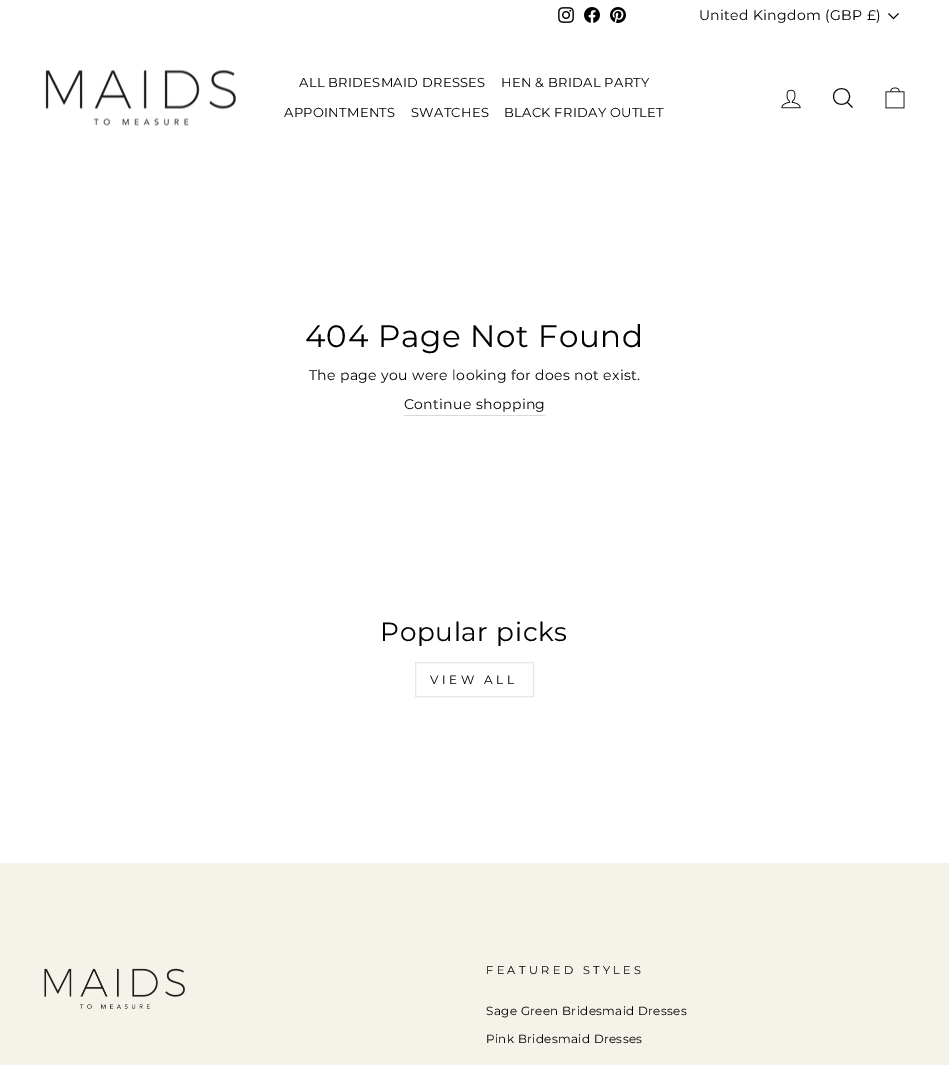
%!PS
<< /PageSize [949 1065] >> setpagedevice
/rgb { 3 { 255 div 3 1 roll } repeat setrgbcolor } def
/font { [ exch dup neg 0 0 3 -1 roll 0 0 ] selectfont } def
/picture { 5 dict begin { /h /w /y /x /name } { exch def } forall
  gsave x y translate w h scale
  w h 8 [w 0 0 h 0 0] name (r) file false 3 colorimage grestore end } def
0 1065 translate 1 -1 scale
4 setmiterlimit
255 255 255 rgb
0 0 949 1065 rectfill
(img_01.rgb) 558 7 16 16 picture
(img_02.rgb) 584 7 16 16 picture
(img_03.rgb) 610 7 16 16 picture
0 0 0 rgb
0.8 setlinewidth
888.5 13.5 moveto 5 5 rlineto 5 -5 rlineto stroke
(img_04.rgb) 45 69 191 57 picture
(img_05.rgb) 781 89 20 20 picture
0.9 setlinewidth
849.5 96.5 moveto 0 10.5 -16 10.5 -16 0 rcurveto 0 -10.5 16 -10.5 16 0 rcurveto closepath 852.5 107.5 moveto -5 -5 rlineto stroke
(img_06.rgb) 885 87 20 22 picture
217 217 217 rgb
404 415 141 1 rectfill
232 232 225 rgb
1 setlinewidth
415.5 662.5 118 34 rectstroke
245 242 234 rgb
0 863 949 202 rectfill
(img_07.rgb) 44 968 141 41 picture
/Montserrat-Regular 14 font
0 0 0 rgb
699 20 moveto 0.35 0 (United Kingdom \(GBP £\)) ashow
/Montserrat-Regular 13 font
299 87 moveto 0.3 0 (ALL BRIDESMAID DRESSES) ashow
501 87 moveto 0.3 0 (HEN & BRIDAL PARTY) ashow
284 117 moveto 0.3 0 (APPOINTMENTS) ashow
411 117 moveto 0.3 0 (SWATCHES) ashow
504 117 moveto 0.3 0 (BLACK FRIDAY OUTLET) ashow
/Montserrat-Regular 31 font
305 347 moveto 0.75 0 (404 Page Not Found) ashow
/Montserrat-Regular 14 font
309 380 moveto 0.35 0 (The page you were looking for does not exist.) ashow
404 409 moveto 0.35 0 (Continue shopping) ashow
/Montserrat-Regular 26.25 font
380 641 moveto 0.7 0 (Popular picks) ashow
/Montserrat-Regular 12 font
430 684 moveto 3.5 0 (VIEW ALL) ashow
/Montserrat-Regular 11.25 font
486 974 moveto 3.4 0 (FEATURED STYLES) ashow
/Montserrat-Regular 11.9 font
486 1015 moveto 0.35 0 (Sage Green Bridesmaid Dresses) ashow
486 1043 moveto 0.35 0 (Pink Bridesmaid Dresses) ashow
showpage
